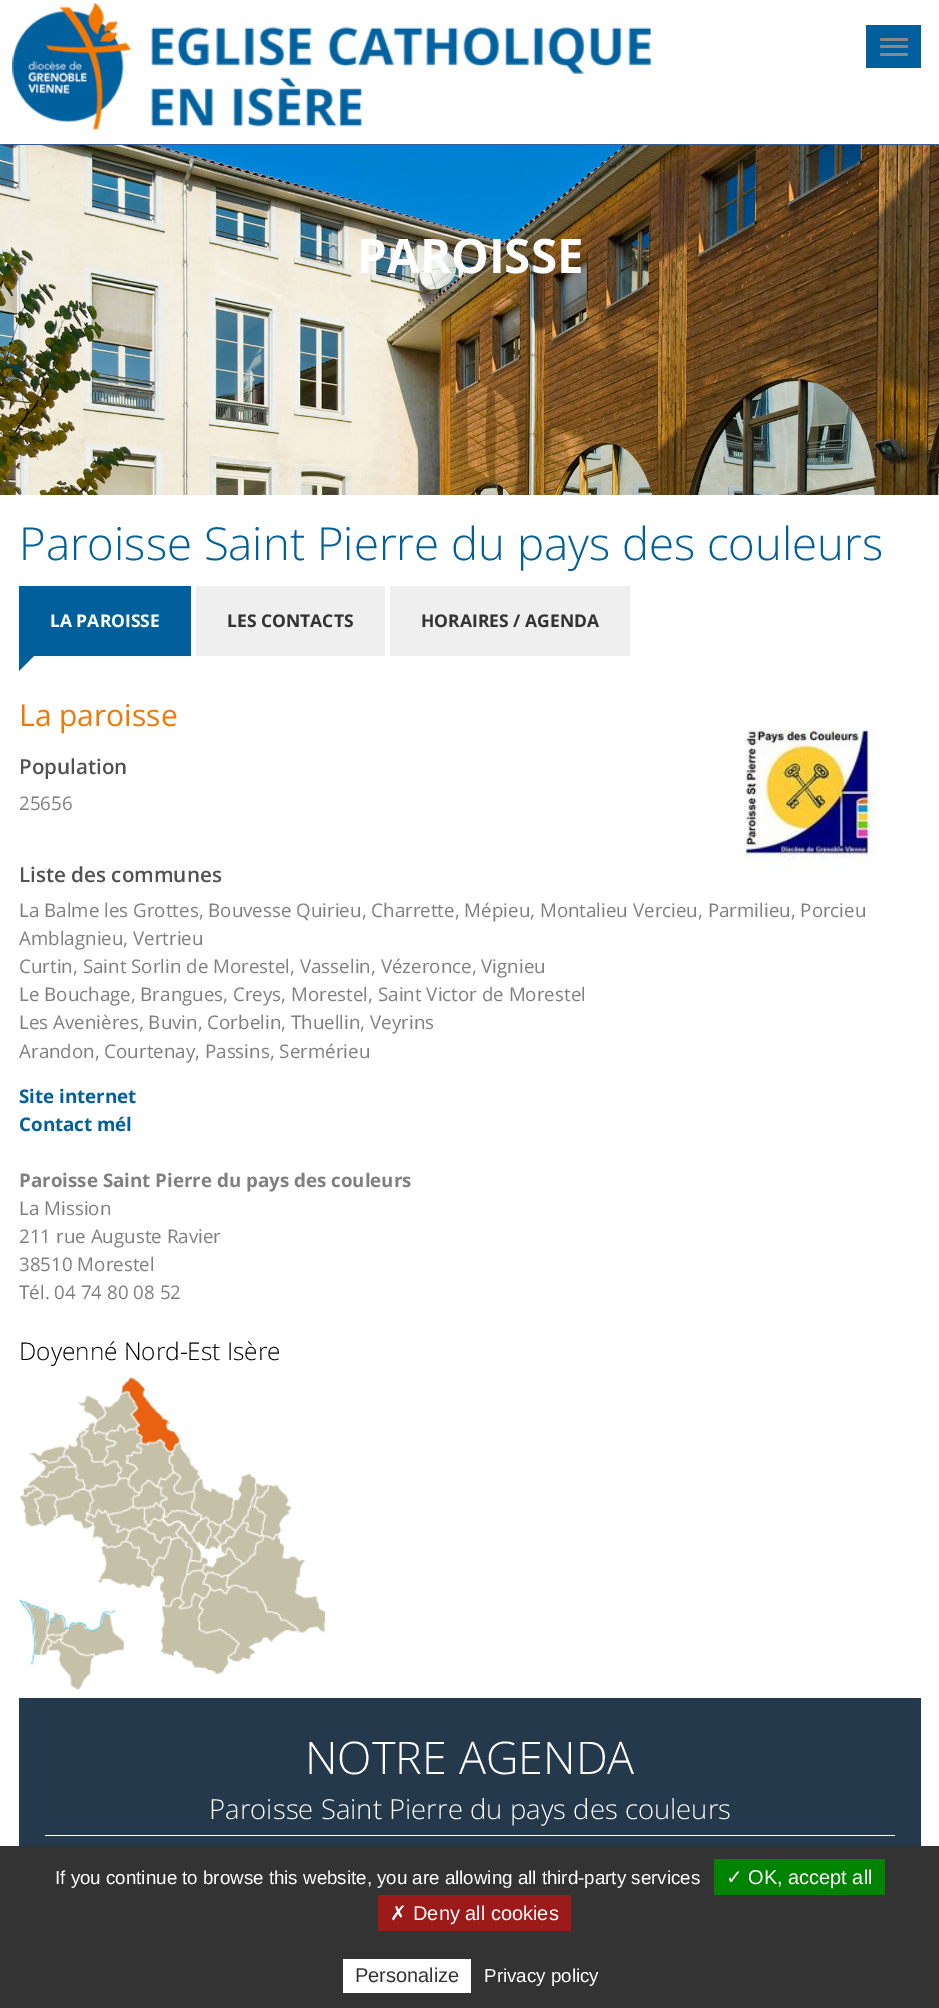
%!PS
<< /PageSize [939 2008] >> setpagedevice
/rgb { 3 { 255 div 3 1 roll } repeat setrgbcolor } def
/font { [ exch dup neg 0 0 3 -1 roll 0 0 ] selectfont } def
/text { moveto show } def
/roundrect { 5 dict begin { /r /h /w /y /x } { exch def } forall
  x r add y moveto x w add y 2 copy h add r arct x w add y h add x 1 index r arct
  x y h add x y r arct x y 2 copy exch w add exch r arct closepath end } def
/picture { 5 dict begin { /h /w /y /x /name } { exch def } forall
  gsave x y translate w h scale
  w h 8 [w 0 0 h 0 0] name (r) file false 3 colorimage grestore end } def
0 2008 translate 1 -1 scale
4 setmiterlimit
255 255 255 rgb
0 0 939 2008 rectfill
53 95 153 rgb
0 144 939 1 rectfill
(img_01.rgb) 12 3 639 128 picture
1 96 155 rgb
866 25 55 43 rectfill
136 136 136 rgb
880 38 28 3 1.5 roundrect fill
880 45 28 3 1.5 roundrect fill
880 53 28 3 1.5 roundrect fill
(img_02.rgb) 0 145 939 350 picture
1 96 155 rgb
19 586 172 70 rectfill
19 671 moveto 0 -18.5 rlineto 18.5 0 rlineto closepath fill
239 239 239 rgb
196 586 189 70 rectfill
390 586 240 70 rectfill
(img_03.rgb) 736 728 141 141 picture
(img_04.rgb) 18 1377 309 314 picture
36 57 75 rgb
19 1698 902 148 rectfill
255 255 255 rgb
45 1835 850 1 rectfill
51 51 51 rgb
0 1846 939 162 rectfill
0 131 0 rgb
714 1859 171 36 rectfill
156 26 26 rgb
378 1895 193 36 rectfill
255 255 255 rgb
343 1959 128 34 rectfill
/OpenSans-Bold 47.5 font
(PAROISSE) 357 273 text
/OpenSans-Light 45.5 font
1 96 155 rgb
(Paroisse Saint Pierre du pays des couleurs) 19 560 text
/OpenSans-Bold 17.5 font
255 255 255 rgb
(LA PAROISSE) 50 627 text
51 51 51 rgb
(LES CONTACTS) 227 627 text
(HORAIRES / AGENDA) 421 627 text
/OpenSans-Regular 30 font
237 122 5 rgb
(La paroisse) 19 726 text
/OpenSans-SemiBold 20.6 font
82 82 82 rgb
(Population) 19 774 text
/OpenSans-Regular 18.75 font
128 128 128 rgb
(25656) 19 810 text
/OpenSans-SemiBold 20.6 font
82 82 82 rgb
(Liste des communes) 19 882 text
/OpenSans-Regular 18.75 font
128 128 128 rgb
(La Balme les Grottes, Bouvesse Quirieu, Charrette, Mépieu, Montalieu Vercieu, Parmilieu, Porcieu) 19 917 text
(Amblagnieu, Vertrieu) 19 945 text
(Curtin, Saint Sorlin de Morestel, Vasselin, Vézeronce, Vignieu) 19 973 text
(Le Bouchage, Brangues, Creys, Morestel, Saint Victor de Morestel) 19 1001 text
(Les Avenières, Buvin, Corbelin, Thuellin, Veyrins) 19 1029 text
(Arandon, Courtenay, Passins, Sermérieu) 19 1058 text
/OpenSans-Bold 18.75 font
1 96 155 rgb
(Site internet) 19 1103 text
(Contact mél) 19 1131 text
128 128 128 rgb
(Paroisse Saint Pierre du pays des couleurs) 19 1187 text
/OpenSans-Regular 18.75 font
(La Mission) 19 1215 text
(211 rue Auguste Ravier) 19 1243 text
(38510 Morestel) 19 1271 text
(Tél. 04 74 80 08 52) 19 1299 text
/OpenSans-Light 24.4 font
0 0 0 rgb
(Doyenné Nord-Est Isère) 19 1360 text
/OpenSans-Light 45 font
255 255 255 rgb
(NOTRE AGENDA) 305 1774 text
/OpenSans-Light 27.5 font
(Paroisse Saint Pierre du pays des couleurs) 209 1819 text
/LiberationSans-Regular 18.75 font
(If you continue to browse this website, you are allowing all third-party services) 55 1884 text
/DejaVuSans-Regular 20 font
(✓) 726 1884 text
/LiberationSans-Regular 20 font
(OK, accept all) 748 1884 text
/DejaVuSans-Regular 20 font
(✗) 390 1920 text
/LiberationSans-Regular 20 font
(Deny all cookies) 413 1920 text
51 51 51 rgb
(Personalize) 355 1982 text
/LiberationSans-Regular 18.75 font
255 255 255 rgb
(Privacy policy) 484 1982 text
showpage
